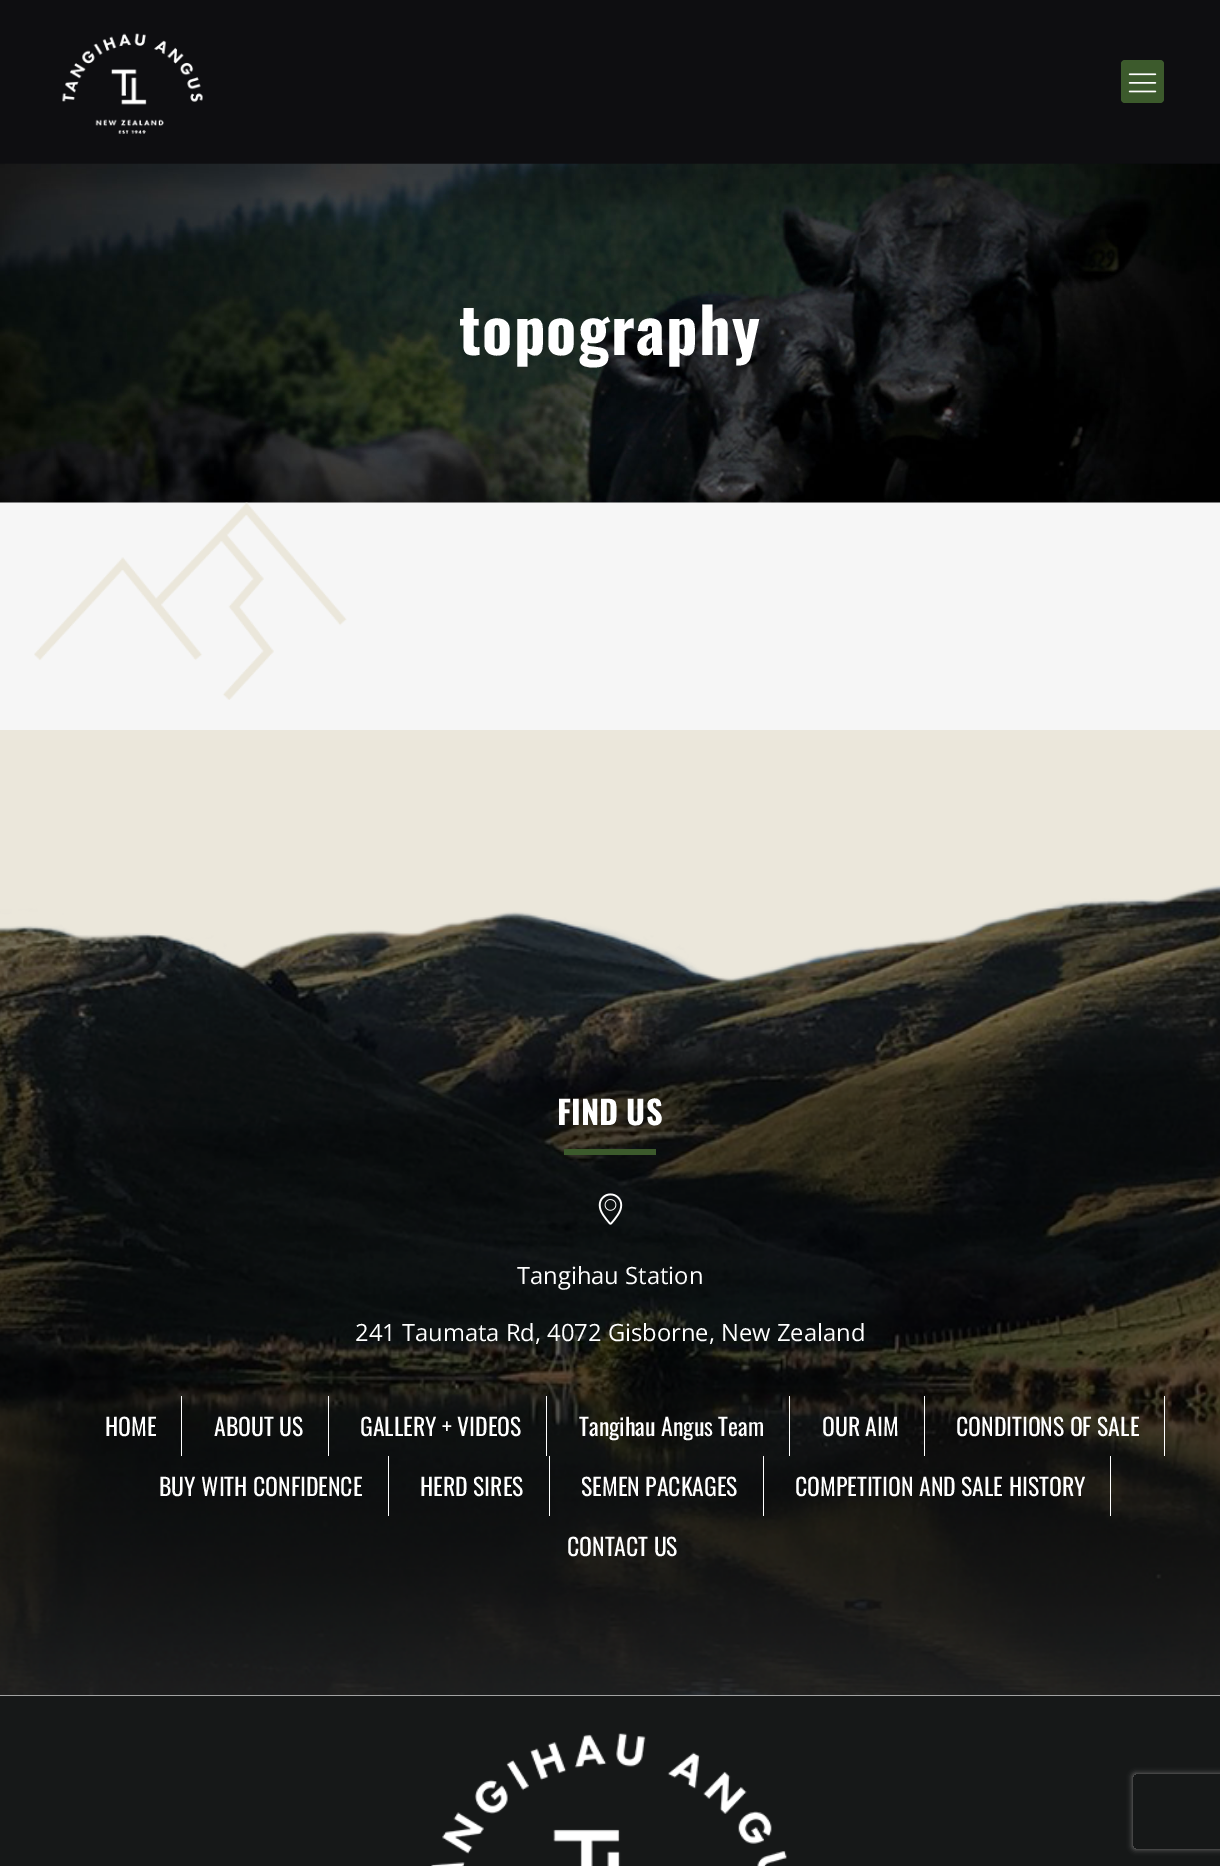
%!PS
<< /PageSize [1220 1866] /PageUsesTransparency true >> setpagedevice
/rgb { 3 { 255 div 3 1 roll } repeat setrgbcolor } def
/font { [ exch dup neg 0 0 3 -1 roll 0 0 ] selectfont } def
/text { moveto show } def
/alpha { dup .setfillconstantalpha .setstrokeconstantalpha } def
/roundrect { 5 dict begin { /r /h /w /y /x } { exch def } forall
  x r add y moveto x w add y 2 copy h add r arct x w add y h add x 1 index r arct
  x y h add x y r arct x y 2 copy exch w add exch r arct closepath end } def
/shadow { 12 dict begin { /a /b /q /h /w /y /x } { exch def } forall gsave /was 0 def
  9 -2 -9 { dup b mul 4 div /e exch def 1 sub .425 mul 2.718 exch exp 1 add a .99 .min exch div /now exch def
    1 1 now sub 1 was sub div sub alpha /was now def
    w h .min e 2 mul add 0 gt { x e sub y e sub w e 2 mul add h e 2 mul add
      q e add b .6 mul add w h .min 2 div e add .min 0 .max roundrect fill } if } for grestore end } def
/picture { 5 dict begin { /h /w /y /x /name } { exch def } forall
  gsave x y translate w h scale
  w h 8 [w 0 0 h 0 0] name (r) file false 3 colorimage grestore end } def
0 .pushpdf14devicefilter
0 1866 translate 1 -1 scale
4 setmiterlimit
246 246 246 rgb
0 0 1220 1866 rectfill
14 14 17 rgb
0 0 1220 164 rectfill
(img_01.rgb) 62 33 141 101 picture
60 90 44 rgb
1121 60 43 43 4 roundrect fill
(img_02.rgb) 1128 73 29 20 picture
(img_03.rgb) 0 163 1220 340 picture
(img_04.rgb) 34 502 313 198 picture
235 231 219 rgb
0 730 1220 254 rectfill
(img_05.rgb) 0 885 1220 810 picture
60 90 44 rgb
564 1149 92 6 rectfill
(img_06.rgb) 598 1193 25 32 picture
255 255 255 rgb
181 1396 1 60 rectfill
328 1396 1 60 rectfill
546 1396 1 60 rectfill
789 1396 1 60 rectfill
924 1396 1 60 rectfill
1164 1396 1 60 rectfill
388 1456 1 60 rectfill
549 1456 1 60 rectfill
763 1456 1 60 rectfill
1110 1456 1 60 rectfill
22 24 24 rgb
0 1696 1220 170 rectfill
162 163 163 rgb
0 1695 1220 1 rectfill
(img_07.rgb) 431 1733 356 133 picture
gsave
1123 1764 moveto 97 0 rlineto 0 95 rlineto -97 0 rlineto closepath 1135.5 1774 moveto 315 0 rlineto 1.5 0 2.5 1 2.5 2.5 rcurveto 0 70 rlineto 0 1.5 -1 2.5 -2.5 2.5 rcurveto -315 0 rlineto -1.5 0 -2.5 -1 -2.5 -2.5 rcurveto 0 -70 rlineto 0 -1.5 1 -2.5 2.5 -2.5 rcurveto closepath eoclip newpath
128 128 128 rgb
1133 1774 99 75 2.5 3 1 shadow
grestore
/Oswald-Bold 62.5 font
255 255 255 rgb
459 355 moveto 1.25 0 (topography) ashow
/Oswald-Bold 32.5 font
(FIND US) 557 1125 text
/OpenSans-Regular 23.75 font
(Tangihau Station) 517 1284 text
(241 Taumata Rd, 4072 Gisborne, New Zealand) 355 1341 text
/Oswald-Regular 23.75 font
(HOME) 105 1436 text
(ABOUT US) 214 1436 text
(GALLERY + VIDEOS) 360 1436 text
(Tangihau Angus Team) 579 1436 text
(OUR AIM) 822 1436 text
(CONDITIONS OF SALE) 956 1436 text
(BUY WITH CONFIDENCE) 159 1496 text
(HERD SIRES) 420 1496 text
(SEMEN PACKAGES) 581 1496 text
(COMPETITION AND SALE HISTORY) 795 1496 text
(CONTACT US) 567 1556 text
.poppdf14devicefilter showpage
